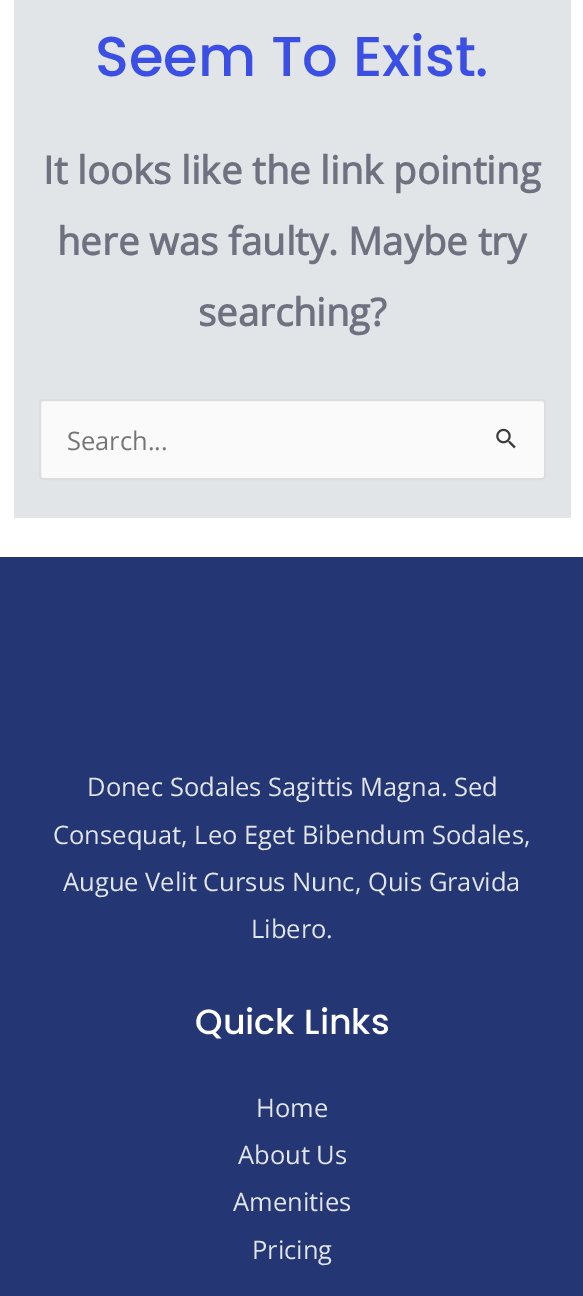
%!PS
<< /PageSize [583 1296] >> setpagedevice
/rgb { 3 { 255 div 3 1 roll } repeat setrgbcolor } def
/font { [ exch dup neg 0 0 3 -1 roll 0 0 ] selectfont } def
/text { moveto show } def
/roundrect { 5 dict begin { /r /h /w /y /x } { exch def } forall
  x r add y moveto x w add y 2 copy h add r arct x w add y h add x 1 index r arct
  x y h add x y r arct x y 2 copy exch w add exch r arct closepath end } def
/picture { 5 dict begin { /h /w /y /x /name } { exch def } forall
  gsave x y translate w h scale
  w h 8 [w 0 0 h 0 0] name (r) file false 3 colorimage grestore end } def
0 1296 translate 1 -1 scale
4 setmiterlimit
255 255 255 rgb
0 0 583 1296 rectfill
226 229 231 rgb
14 0 557 518 rectfill
250 250 250 rgb
40 400 505 79 3 roundrect gsave fill grestore
221 221 221 rgb
2 setlinewidth
stroke
(img_01.rgb) 496 428 20 21 picture
36 54 115 rgb
0 557 583 739 rectfill
/Poppins-Medium 56 font
59 79 228 rgb
(Seem To Exist.) 95 76 text
/OpenSans-Bold 38.25 font
110 113 128 rgb
(It looks like the link pointing) 43 184 text
(here was faulty. Maybe try) 57 255 text
(searching?) 198 326 text
/OpenSans-Regular 25.5 font
117 117 117 rgb
(Search...) 67 450 text
226 229 231 rgb
(Donec Sodales Sagittis Magna. Sed) 87 796 text
(Consequat, Leo Eget Bibendum Sodales,) 53 844 text
(Augue Velit Cursus Nunc, Quis Gravida) 63 891 text
(Libero.) 251 938 text
/Poppins-Medium 35 font
255 255 255 rgb
(Quick Links) 195 1034 text
/OpenSans-Regular 25.5 font
226 229 231 rgb
(Home) 256 1117 text
(About Us) 238 1164 text
(Amenities) 233 1211 text
(Pricing) 252 1259 text
showpage
